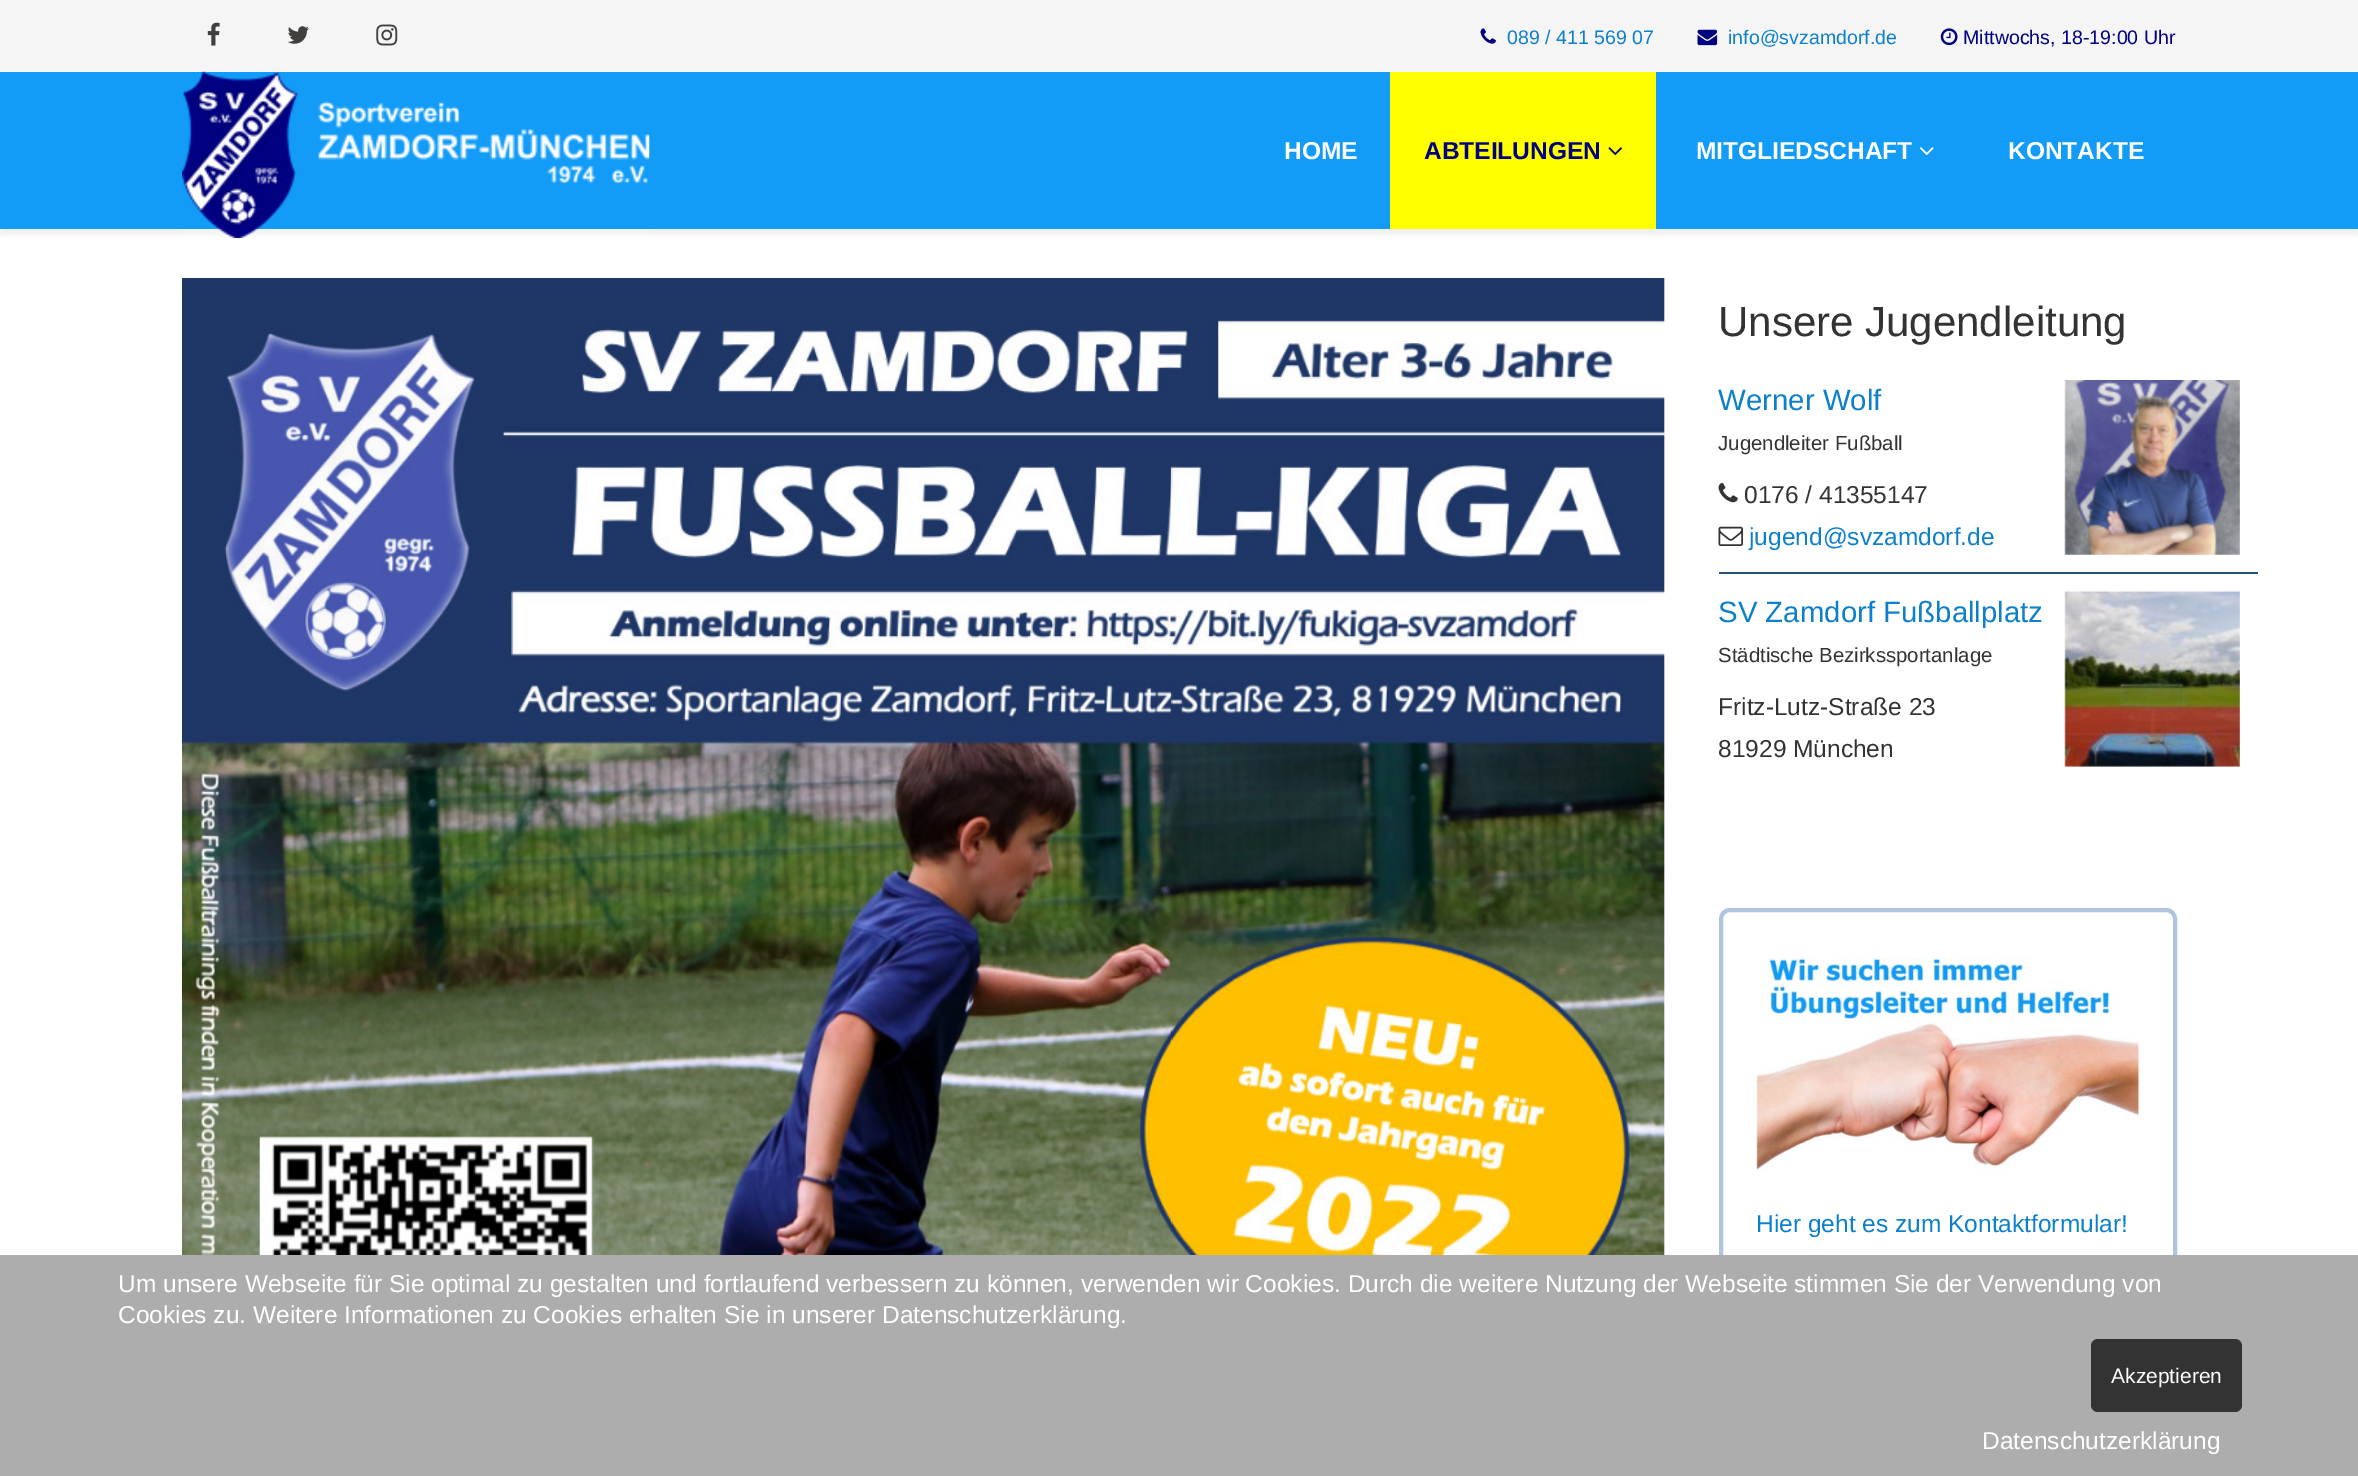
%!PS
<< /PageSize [2358 1476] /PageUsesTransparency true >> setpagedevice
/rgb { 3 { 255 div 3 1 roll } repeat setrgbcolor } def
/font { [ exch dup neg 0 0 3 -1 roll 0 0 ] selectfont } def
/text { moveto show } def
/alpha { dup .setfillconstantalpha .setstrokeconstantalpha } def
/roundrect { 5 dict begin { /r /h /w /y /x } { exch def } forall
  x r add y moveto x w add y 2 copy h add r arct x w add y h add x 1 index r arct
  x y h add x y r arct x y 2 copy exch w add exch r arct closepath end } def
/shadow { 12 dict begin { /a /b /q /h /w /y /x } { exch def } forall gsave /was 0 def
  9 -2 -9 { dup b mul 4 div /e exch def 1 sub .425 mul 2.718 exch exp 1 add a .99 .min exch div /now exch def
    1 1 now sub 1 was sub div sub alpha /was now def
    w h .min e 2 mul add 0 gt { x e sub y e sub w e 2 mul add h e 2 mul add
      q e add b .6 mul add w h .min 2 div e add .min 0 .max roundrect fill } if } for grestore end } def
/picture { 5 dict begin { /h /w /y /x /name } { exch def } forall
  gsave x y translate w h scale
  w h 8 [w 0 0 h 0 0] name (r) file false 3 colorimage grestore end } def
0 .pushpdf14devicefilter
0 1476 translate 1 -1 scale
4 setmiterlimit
255 255 255 rgb
0 0 2358 1476 rectfill
245 245 245 rgb
0 0 2358 72 rectfill
(img_01.rgb) 207 22 13 24 picture
(img_02.rgb) 287 26 22 18 picture
(img_03.rgb) 376 24 22 22 picture
(img_04.rgb) 1480 28 16 16 picture
(img_05.rgb) 1697 29 21 17 picture
(img_06.rgb) 1940 28 18 18 picture
0 0 0 rgb
0 77 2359 158 0 2.5 0.05 shadow
18 156 247 rgb
0 72 2358 157 rectfill
(img_07.rgb) 182 71 468 167 picture
255 255 0 rgb
1390 72 266 157 rectfill
(img_08.rgb) 1608 147 14 9 picture
(img_09.rgb) 1920 147 14 9 picture
(img_10.rgb) 182 278 1483 977 picture
(img_11.rgb) 2064 380 176 175 picture
(img_12.rgb) 1718 483 20 20 picture
(img_13.rgb) 1718 526 25 20 picture
35 82 124 rgb
1719 572 539 2 rectfill
(img_14.rgb) 2064 590 176 177 picture
176 196 222 rgb
4 setlinewidth
1721 910 454 388 9 roundrect stroke
(img_15.rgb) 1756 957 384 213 picture
173 173 173 rgb
0 1255 2358 221 rectfill
51 51 51 rgb
2091 1339 151 73 7 roundrect fill
/LiberationSans-Regular 19.6 font
13 128 203 rgb
(089 / 411 569 07) 1507 44 text
(info@svzamdorf.de) 1728 44 text
0 0 128 rgb
(Mittwochs, 18-19:00 Uhr) 1963 44 text
/LiberationSans-Bold 24.5 font
255 255 255 rgb
(HOME) 1284 159 text
0 0 128 rgb
(ABTEILUNGEN) 1424 159 text
255 255 255 rgb
(MITGLIEDSCHAFT) 1696 159 text
(KONTAKTE) 2008 159 text
/LiberationSans-Regular 42 font
51 51 51 rgb
(Unsere Jugendleitung) 1718 336 text
/LiberationSans-Regular 29.4 font
13 128 203 rgb
(Werner Wolf) 1718 410 text
/LiberationSans-Regular 20.4 font
51 51 51 rgb
(Jugendleiter Fußball) 1718 450 text
/LiberationSans-Regular 24.5 font
(0176 / 41355147) 1744 503 text
13 128 203 rgb
(jugend@svzamdorf.de) 1749 545 text
/LiberationSans-Regular 29.4 font
(SV Zamdorf Fußballplatz) 1718 622 text
/LiberationSans-Regular 20.4 font
51 51 51 rgb
(Städtische Bezirkssportanlage) 1718 662 text
/LiberationSans-Regular 24.5 font
(Fritz-Lutz-Straße 23) 1718 715 text
(81929 München) 1718 757 text
13 128 203 rgb
(Hier geht es zum Kontaktformular!) 1756 1232 text
255 255 255 rgb
(Um unsere Webseite für Sie optimal zu gestalten und fortlaufend verbessern zu können, verwenden wir Cookies. Durch die weitere Nutzung der Webseite stimmen Sie der Verwendung von) 118 1292 text
(Cookies zu. Weitere Informationen zu Cookies erhalten Sie in unserer Datenschutzerklärung.) 118 1323 text
/LiberationSans-Regular 21 font
(Akzeptieren) 2111 1383 text
/LiberationSans-Regular 24.5 font
(Datenschutzerklärung) 1982 1449 text
.poppdf14devicefilter showpage
